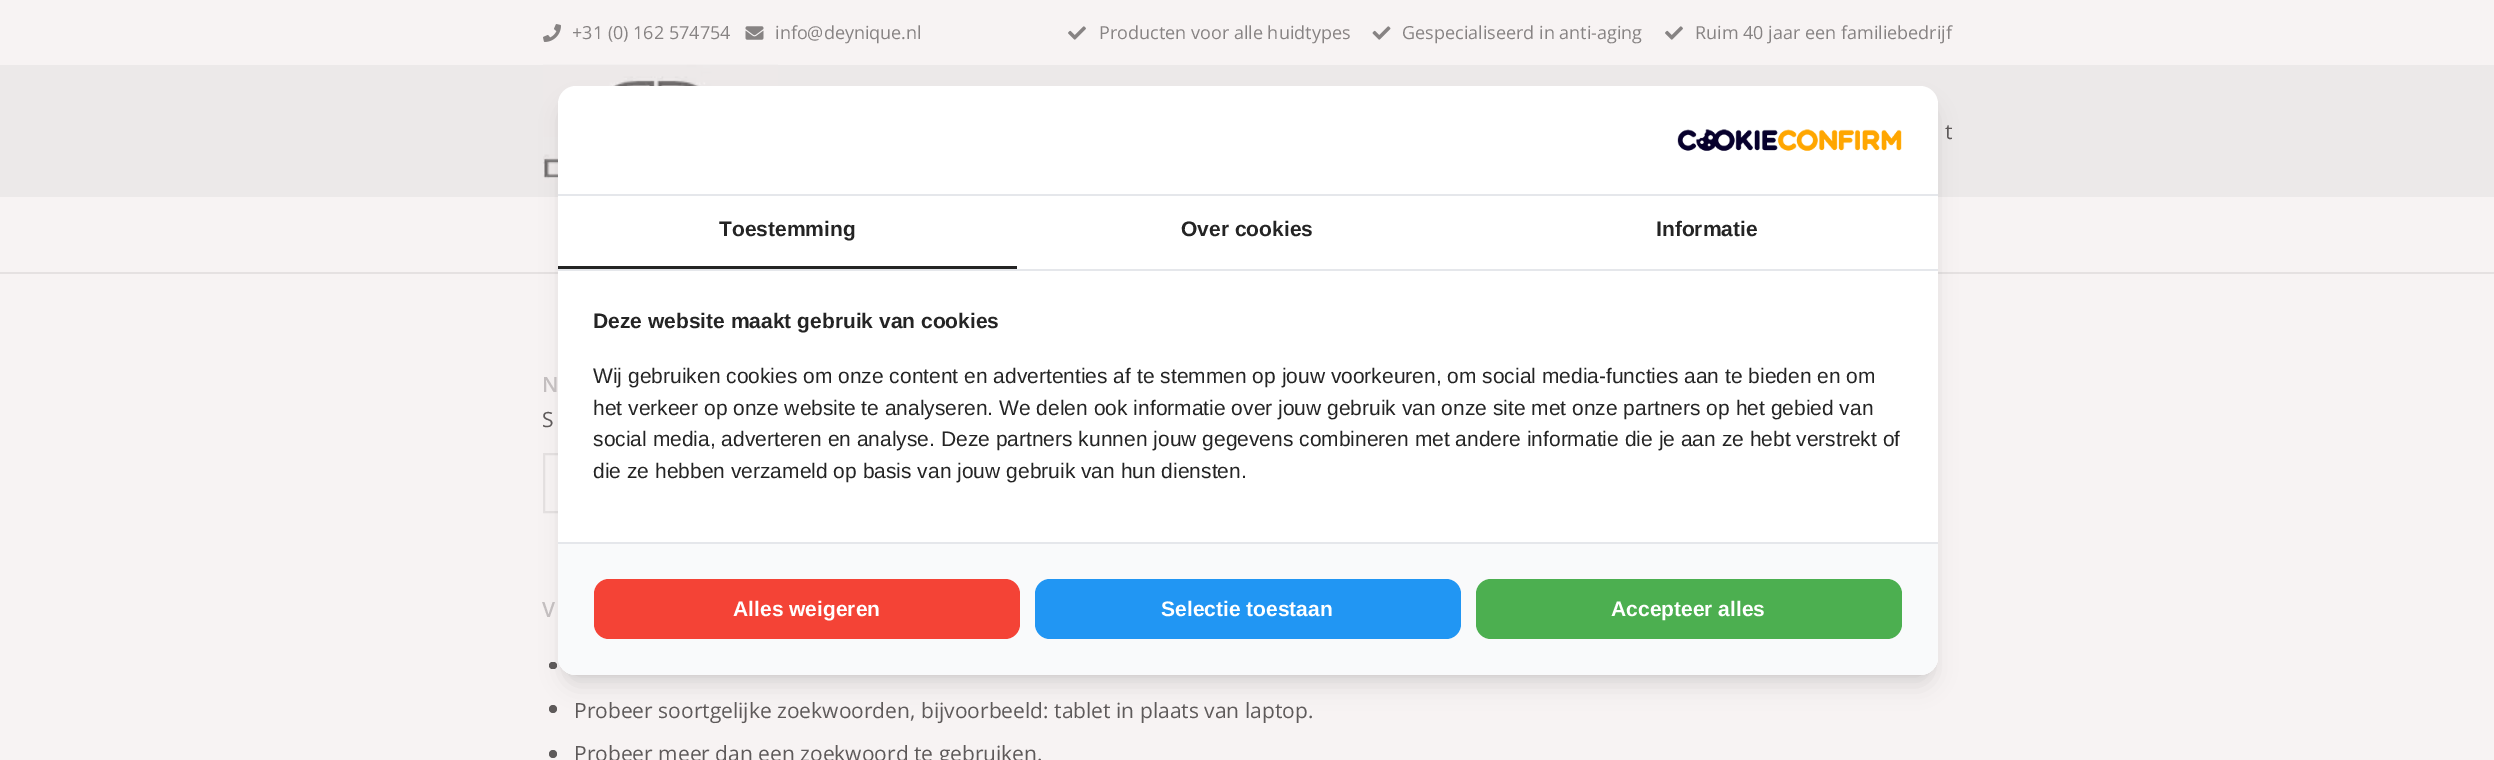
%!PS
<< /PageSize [2494 760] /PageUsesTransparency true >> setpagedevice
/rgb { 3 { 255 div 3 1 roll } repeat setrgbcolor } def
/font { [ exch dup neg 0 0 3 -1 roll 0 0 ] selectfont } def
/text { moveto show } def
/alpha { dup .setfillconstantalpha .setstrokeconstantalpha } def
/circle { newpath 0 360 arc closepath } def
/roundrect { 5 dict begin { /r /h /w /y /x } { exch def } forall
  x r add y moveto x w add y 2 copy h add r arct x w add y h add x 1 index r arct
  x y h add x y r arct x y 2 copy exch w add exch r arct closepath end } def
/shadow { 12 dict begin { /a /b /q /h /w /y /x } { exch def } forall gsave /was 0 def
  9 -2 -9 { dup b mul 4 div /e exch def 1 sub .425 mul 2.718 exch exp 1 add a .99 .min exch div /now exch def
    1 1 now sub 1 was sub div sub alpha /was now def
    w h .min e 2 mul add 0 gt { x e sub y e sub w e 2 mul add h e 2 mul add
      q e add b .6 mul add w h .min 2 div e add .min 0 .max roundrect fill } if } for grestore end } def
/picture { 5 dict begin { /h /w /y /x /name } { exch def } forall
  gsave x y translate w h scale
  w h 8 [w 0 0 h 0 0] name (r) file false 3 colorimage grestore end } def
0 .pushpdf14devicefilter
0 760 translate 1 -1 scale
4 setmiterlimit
247 243 243 rgb
0 0 2494 760 rectfill
(img_01.rgb) 543 24 18 18 picture
(img_02.rgb) 745 26 19 14 picture
(img_03.rgb) 1068 26 18 14 picture
(img_04.rgb) 1372 26 19 14 picture
(img_03.rgb) 1665 26 18 14 picture
236 233 233 rgb
0 65 2494 132 rectfill
229 225 225 rgb
0 272 2494 2 rectfill
(img_05.rgb) 543 64 235 119 picture
2 setlinewidth
544 454 448 58 rectstroke
94 90 90 rgb
549 662 8 7 3.5 roundrect fill
553 709 4 circle fill
553 754 4 circle fill
0 0 0 rgb
564 98 1368 577 12 4.5 0.1 shadow
563 105 1371 581 14 11 0.1 shadow
255 255 255 rgb
558 86 1380 589 18 roundrect fill
229 231 235 rgb
558 194 1380 2 rectfill
(img_06.rgb) 1677 129 225 22 picture
558 269 1380 2 rectfill
36 36 36 rgb
558 266 459 3 rectfill
gsave
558 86 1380 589 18 roundrect clip newpath
255 255 255 rgb
546 500 1404 157 0 15 1 shadow
grestore
249 250 251 rgb
558 542 moveto 1380 0 rlineto 0 115 rlineto 0 10 -8 18 -18 18 rcurveto -1344 0 rlineto -10 0 -18 -8 -18 -18 rcurveto closepath fill
229 231 235 rgb
558 542 1380 2 rectfill
244 67 54 rgb
594 579 426 60 15 roundrect fill
33 150 243 rgb
1035 579 426 60 15 roundrect fill
76 175 80 rgb
1476 579 426 60 15 roundrect fill
/OpenSans-Regular 18 font
135 131 131 rgb
(+31 \(0\) 162 574754) 572 39 text
(info@deynique.nl) 775 39 text
(Producten voor alle huidtypes) 1099 39 text
(Gespecialiseerd in anti-aging) 1402 39 text
(Ruim 40 jaar een familiebedrijf) 1695 39 text
/OpenSans-Regular 21 font
94 90 90 rgb
(t) 1945 139 text
/OpenSans-SemiBold 21 font
195 190 191 rgb
(N) 542 392 text
/OpenSans-Regular 21 font
94 90 90 rgb
(S) 542 427 text
/OpenSans-SemiBold 21 font
195 190 191 rgb
(V) 542 617 text
/OpenSans-Regular 21 font
94 90 90 rgb
(Probeer soortgelijke zoekwoorden, bijvoorbeeld: tablet in plaats van laptop.) 574 718 text
(Probeer meer dan een zoekwoord te gebruiken.) 574 761 text
/LiberationSans-Bold 21 font
36 36 36 rgb
(Toestemming) 719 236 text
(Over cookies) 1181 236 text
(Informatie) 1656 236 text
(Deze website maakt gebruik van cookies) 593 328 text
/LiberationSans-Regular 21 font
(Wij gebruiken cookies om onze content en advertenties af te stemmen op jouw voorkeuren, om social media-functies aan te bieden en om) 593 383 text
(het verkeer op onze website te analyseren. We delen ook informatie over jouw gebruik van onze site met onze partners op het gebied van) 593 415 text
(social media, adverteren en analyse. Deze partners kunnen jouw gegevens combineren met andere informatie die je aan ze hebt verstrekt of) 593 446 text
(die ze hebben verzameld op basis van jouw gebruik van hun diensten.) 593 478 text
/LiberationSans-Bold 21 font
255 255 255 rgb
(Alles weigeren) 733 616 text
(Selectie toestaan) 1161 616 text
(Accepteer alles) 1611 616 text
.poppdf14devicefilter showpage
